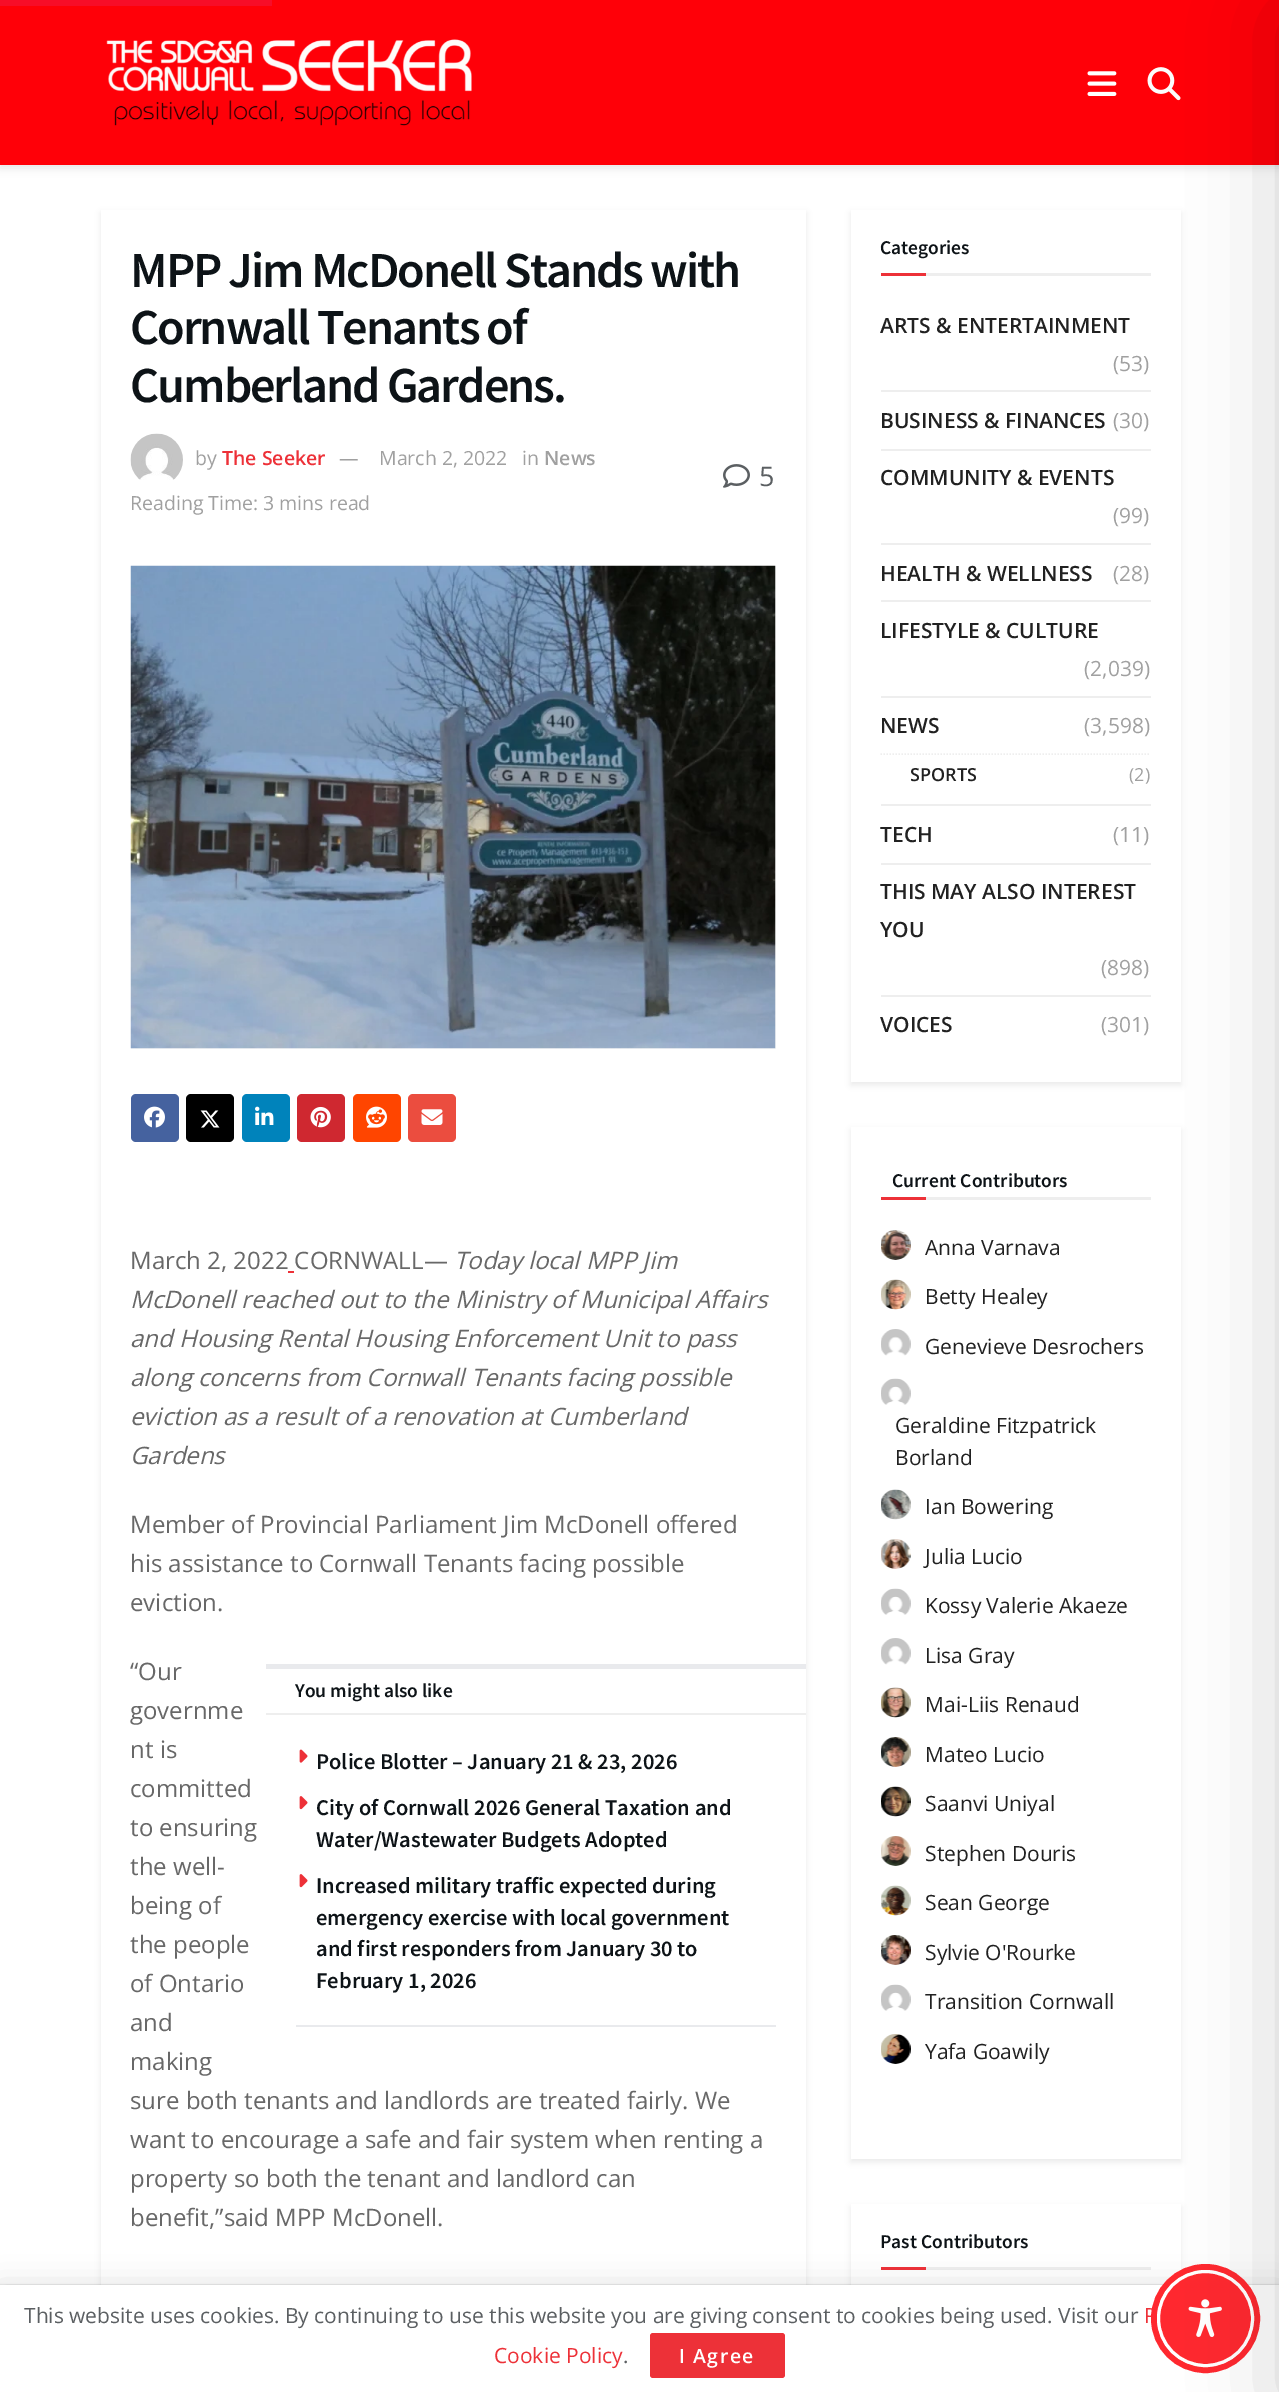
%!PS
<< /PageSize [1279 2392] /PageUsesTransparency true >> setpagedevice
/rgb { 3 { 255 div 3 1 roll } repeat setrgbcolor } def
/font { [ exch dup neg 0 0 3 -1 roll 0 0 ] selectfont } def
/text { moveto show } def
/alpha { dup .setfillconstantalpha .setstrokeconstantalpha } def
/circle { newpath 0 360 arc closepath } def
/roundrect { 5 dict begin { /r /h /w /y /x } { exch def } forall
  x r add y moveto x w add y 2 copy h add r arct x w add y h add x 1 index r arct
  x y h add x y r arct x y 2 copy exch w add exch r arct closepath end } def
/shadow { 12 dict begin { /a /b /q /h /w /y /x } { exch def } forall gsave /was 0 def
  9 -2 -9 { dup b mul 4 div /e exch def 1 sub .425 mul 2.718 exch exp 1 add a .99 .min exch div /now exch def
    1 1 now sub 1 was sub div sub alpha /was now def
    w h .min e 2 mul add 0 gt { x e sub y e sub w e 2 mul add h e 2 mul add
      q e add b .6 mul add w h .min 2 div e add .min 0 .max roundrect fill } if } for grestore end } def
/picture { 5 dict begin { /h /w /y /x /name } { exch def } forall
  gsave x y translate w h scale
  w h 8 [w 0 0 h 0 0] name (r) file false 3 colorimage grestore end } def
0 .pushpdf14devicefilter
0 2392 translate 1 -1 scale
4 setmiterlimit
255 255 255 rgb
0 0 1279 2392 rectfill
0 0 0 rgb
0 3 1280 165 0 4.5 0.1 shadow
255 0 8 rgb
0 0 1279 165 rectfill
247 13 40 rgb
0 0 272 6 rectfill
(img_01.rgb) 106 39 366 87 picture
(img_02.rgb) 1087 71 30 25 picture
(img_03.rgb) 1147 67 34 34 picture
0 0 0 rgb
101 213 705 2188 0 3 0.08 shadow
255 255 255 rgb
101 210 705 2075 rectfill
(img_04.rgb) 130 433 53 47 picture
(img_05.rgb) 723 464 27 24 picture
247 247 247 rgb
131 566 645 483 rectfill
(img_06.rgb) 130 565 646 484 picture
69 98 159 rgb
131 1094 48 48 5 roundrect fill
(img_07.rgb) 144 1106 21 22 picture
0 0 0 rgb
186 1094 48 48 5 roundrect fill
(img_08.rgb) 200 1110 20 18 picture
0 131 187 rgb
242 1094 48 48 5 roundrect fill
(img_09.rgb) 255 1106 19 19 picture
207 40 48 rgb
297 1094 48 48 5 roundrect fill
(img_10.rgb) 310 1106 21 22 picture
255 69 0 rgb
353 1094 48 48 5 roundrect fill
(img_11.rgb) 366 1106 21 22 picture
235 77 63 rgb
408 1094 48 48 5 roundrect fill
(img_12.rgb) 421 1109 22 16 picture
233 234 237 rgb
296 2025 480 2 rectfill
266 1664 540 5 rectfill
238 238 238 rgb
266 1713 540 2 rectfill
(img_13.rgb) 299 1749 9 14 picture
(img_14.rgb) 299 1796 9 14 picture
(img_14.rgb) 299 1874 9 14 picture
0 0 0 rgb
851 213 330 872 0 3 0.08 shadow
255 255 255 rgb
851 210 330 872 rectfill
238 238 238 rgb
926 273 225 3 rectfill
237 49 56 rgb
881 273 45 3 rectfill
238 238 238 rgb
881 390 270 2 rectfill
881 449 270 2 rectfill
881 543 270 2 rectfill
881 600 270 2 rectfill
881 696 270 2 rectfill
1.5 setlinewidth
[1.5 1.5] 0 setdash
880.5 754 moveto 270 0 rlineto stroke
881 804 270 2 rectfill
881 863 270 2 rectfill
881 995 270 2 rectfill
0 0 0 rgb
851 1130 330 1032 0 3 0.08 shadow
255 255 255 rgb
851 1127 330 1032 rectfill
238 238 238 rgb
926 1197 225 3 rectfill
237 49 56 rgb
881 1197 45 3 rectfill
(img_15.rgb) 881 1230 30 30 picture
(img_16.rgb) 881 1279 30 31 picture
(img_17.rgb) 881 1329 30 27 picture
(img_18.rgb) 881 1378 30 27 picture
(img_19.rgb) 881 1489 30 31 picture
(img_20.rgb) 881 1539 30 30 picture
(img_18.rgb) 881 1588 30 27 picture
(img_17.rgb) 881 1638 30 27 picture
(img_21.rgb) 881 1687 30 31 picture
(img_22.rgb) 881 1737 30 30 picture
(img_23.rgb) 881 1786 30 31 picture
(img_24.rgb) 881 1836 30 30 picture
(img_25.rgb) 881 1885 30 31 picture
(img_26.rgb) 881 1935 30 30 picture
(img_18.rgb) 881 1984 30 27 picture
(img_27.rgb) 881 2034 30 30 picture
0 0 0 rgb
851 2207 330 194 0 3 0.08 shadow
255 255 255 rgb
851 2204 330 81 rectfill
238 238 238 rgb
926 2267 225 3 rectfill
237 49 56 rgb
881 2267 45 3 rectfill
0 0 0 rgb
0 2288 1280 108 0 15 0.15 shadow
0 2285 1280 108 0 1 0.2 shadow
255 255 255 rgb
0 2285 1279 107 rectfill
237 49 56 rgb
650 2333 135 45 3 roundrect fill
/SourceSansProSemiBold-SemiBold 50.4 font
13 19 23 rgb
130 287 moveto -2 0 (MPP Jim McDonell Stands with) ashow
130 344 moveto -2 0 (Cornwall Tenants of) ashow
130 402 moveto -2 0 (Cumberland Gardens.) ashow
/OpenSans-Regular 19.5 font
160 160 160 rgb
(by) 195 465 text
/OpenSans-SemiBold 19.5 font
237 49 56 rgb
(The Seeker) 222 465 text
/OpenSans-Regular 19.5 font
160 160 160 rgb
(—) 339 465 text
(March 2, 2022) 379 465 text
(in) 522 465 text
/OpenSans-SemiBold 19.5 font
(News) 544 465 text
/OpenSans-Regular 19.5 font
(Reading Time: 3 mins read) 130 510 text
/OpenSans-Regular 27 font
91 95 98 rgb
(5) 759 486 text
/OpenSans-Regular 24 font
104 104 104 rgb
(March 2, 2022 CORNWALL—) 130 1269 text
/OpenSans-Italic 24 font
(Today local MPP Jim) 454 1269 text
237 49 56 rgb
288 1271 6 2 rectfill
104 104 104 rgb
(McDonell reached out to the Ministry of Municipal Affairs) 130 1308 text
(and Housing Rental Housing Enforcement Unit to pass) 130 1347 text
(along concerns from Cornwall Tenants facing possible) 130 1386 text
(eviction as a result of a renovation at Cumberland) 130 1425 text
(Gardens) 130 1464 text
/OpenSans-Regular 24 font
(Member of Provincial Parliament Jim McDonell offered) 130 1533 text
(his assistance to Cornwall Tenants facing possible) 130 1572 text
(eviction.) 130 1611 text
(“Our) 130 1680 text
(governme) 130 1719 text
(nt is) 130 1758 text
(committed) 130 1797 text
(to ensuring) 130 1836 text
(the well-) 130 1875 text
(being of) 130 1914 text
(the people) 130 1953 text
(of Ontario) 130 1992 text
(and) 130 2031 text
(making) 130 2070 text
(sure both tenants and landlords are treated fairly. We) 130 2109 text
(want to encourage a safe and fair system when renting a) 130 2148 text
(property so both the tenant and landlord can) 130 2187 text
(benefit,”said MPP McDonell.) 130 2226 text
/SourceSansProSemiBold-SemiBold 19.5 font
13 19 23 rgb
(You might also like) 295 1697 text
/SourceSansProSemiBold-SemiBold 22.5 font
(Police Blotter – January 21 & 23, 2026) 316 1769 text
(City of Cornwall 2026 General Taxation and) 316 1815 text
(Water/Wastewater Budgets Adopted) 316 1847 text
(Increased military traffic expected during) 316 1893 text
(emergency exercise with local government) 316 1925 text
(and first responders from January 30 to) 316 1956 text
(February 1, 2026) 316 1988 text
/SourceSansProSemiBold-SemiBold 19.5 font
(Categories) 880 254 text
/OpenSans-SemiBold 21 font
33 33 33 rgb
(ARTS & ENTERTAINMENT) 880 333 text
/OpenSans-Regular 21 font
160 160 160 rgb
(\(53\)) 1113 371 text
/OpenSans-SemiBold 21 font
33 33 33 rgb
(BUSINESS & FINANCES) 880 428 text
/OpenSans-Regular 21 font
160 160 160 rgb
(\(30\)) 1113 428 text
/OpenSans-SemiBold 21 font
33 33 33 rgb
(COMMUNITY & EVENTS) 880 485 text
/OpenSans-Regular 21 font
160 160 160 rgb
(\(99\)) 1113 523 text
/OpenSans-SemiBold 21 font
33 33 33 rgb
(HEALTH & WELLNESS) 880 581 text
/OpenSans-Regular 21 font
160 160 160 rgb
(\(28\)) 1113 581 text
/OpenSans-SemiBold 21 font
33 33 33 rgb
(LIFESTYLE & CULTURE) 880 638 text
/OpenSans-Regular 21 font
160 160 160 rgb
(\(2,039\)) 1084 676 text
/OpenSans-SemiBold 21 font
33 33 33 rgb
(NEWS) 880 733 text
/OpenSans-Regular 21 font
160 160 160 rgb
(\(3,598\)) 1084 733 text
/OpenSans-SemiBold 18 font
33 33 33 rgb
(SPORTS) 910 781 text
/OpenSans-Regular 18 font
160 160 160 rgb
(\(2\)) 1129 781 text
/OpenSans-SemiBold 21 font
33 33 33 rgb
(TECH) 880 842 text
/OpenSans-Regular 21 font
160 160 160 rgb
(\(11\)) 1113 842 text
/OpenSans-SemiBold 21 font
33 33 33 rgb
(THIS MAY ALSO INTEREST) 880 899 text
(YOU) 880 937 text
/OpenSans-Regular 21 font
160 160 160 rgb
(\(898\)) 1101 975 text
/OpenSans-SemiBold 21 font
33 33 33 rgb
(VOICES) 880 1032 text
/OpenSans-Regular 21 font
160 160 160 rgb
(\(301\)) 1101 1032 text
/SourceSansProSemiBold-SemiBold 19.5 font
13 19 23 rgb
(Current Contributors) 892 1187 text
/OpenSans-Regular 21 font
33 33 33 rgb
(Anna Varnava) 925 1255 text
(Betty Healey) 925 1304 text
(Genevieve Desrochers) 925 1354 text
(Geraldine Fitzpatrick) 895 1433 text
(Borland) 895 1465 text
(Ian Bowering) 925 1514 text
(Julia Lucio) 925 1564 text
(Kossy Valerie Akaeze) 925 1613 text
(Lisa Gray) 925 1663 text
(Mai-Liis Renaud) 925 1712 text
(Mateo Lucio) 925 1762 text
(Saanvi Uniyal) 925 1811 text
(Stephen Douris) 925 1861 text
(Sean George) 925 1910 text
(Sylvie O'Rourke) 925 1960 text
(Transition Cornwall) 925 2009 text
(Yafa Goawily) 925 2059 text
/SourceSansProSemiBold-SemiBold 19.5 font
13 19 23 rgb
(Past Contributors) 880 2248 text
/OpenSans-Regular 21 font
91 95 98 rgb
(This website uses cookies. By continuing to use this website you are giving consent to cookies being used. Visit our) 24 2323 text
237 49 56 rgb
(P) 1144 2323 text
(Cookie Policy) 494 2363 text
91 95 98 rgb
(.) 623 2363 text
/OpenSans-SemiBold 19.5 font
255 255 255 rgb
679 2363 moveto 1.5 0 (I Agree) ashow
255 40 47 rgb
6 setlinewidth
[] 0 setdash
1205.5 2318.5 51.5 circle stroke
1205.5 2318.5 47 circle gsave fill grestore
255 255 255 rgb
3 setlinewidth
stroke
(img_28.rgb) 1188 2299 34 38 picture
0 0 0 rgb
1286 15 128 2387 0 45 0.2 shadow
.poppdf14devicefilter showpage
